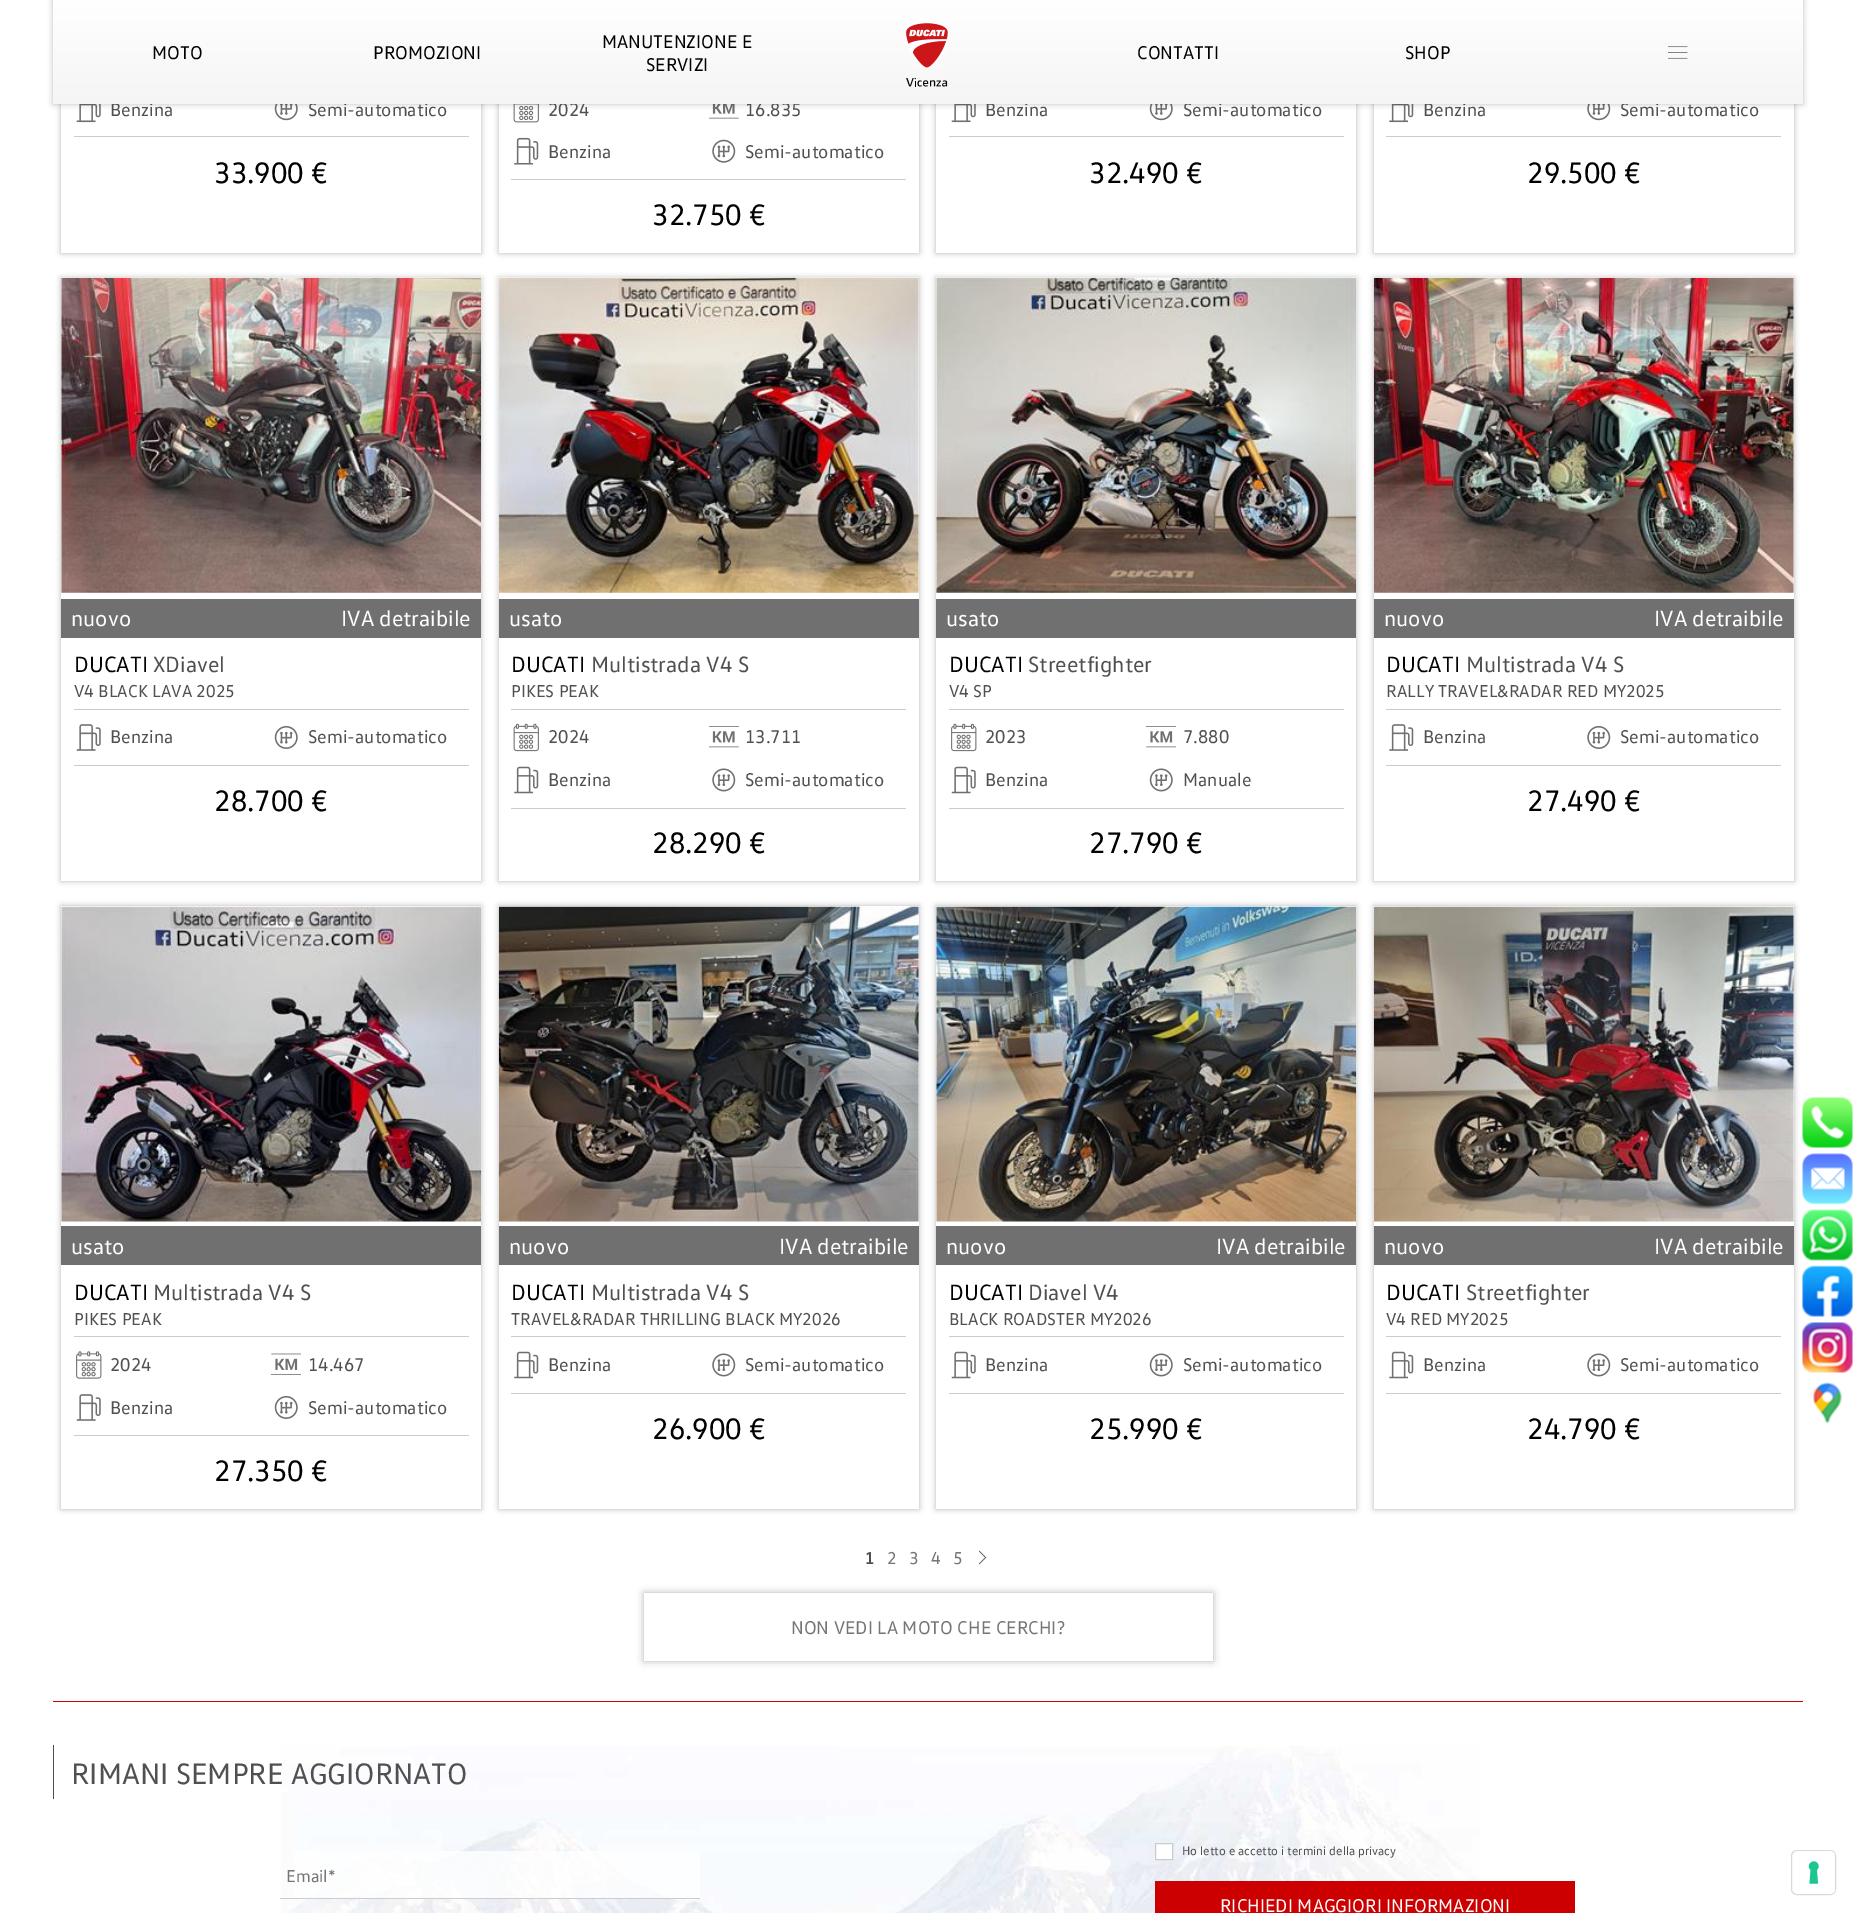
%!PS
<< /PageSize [1855 1913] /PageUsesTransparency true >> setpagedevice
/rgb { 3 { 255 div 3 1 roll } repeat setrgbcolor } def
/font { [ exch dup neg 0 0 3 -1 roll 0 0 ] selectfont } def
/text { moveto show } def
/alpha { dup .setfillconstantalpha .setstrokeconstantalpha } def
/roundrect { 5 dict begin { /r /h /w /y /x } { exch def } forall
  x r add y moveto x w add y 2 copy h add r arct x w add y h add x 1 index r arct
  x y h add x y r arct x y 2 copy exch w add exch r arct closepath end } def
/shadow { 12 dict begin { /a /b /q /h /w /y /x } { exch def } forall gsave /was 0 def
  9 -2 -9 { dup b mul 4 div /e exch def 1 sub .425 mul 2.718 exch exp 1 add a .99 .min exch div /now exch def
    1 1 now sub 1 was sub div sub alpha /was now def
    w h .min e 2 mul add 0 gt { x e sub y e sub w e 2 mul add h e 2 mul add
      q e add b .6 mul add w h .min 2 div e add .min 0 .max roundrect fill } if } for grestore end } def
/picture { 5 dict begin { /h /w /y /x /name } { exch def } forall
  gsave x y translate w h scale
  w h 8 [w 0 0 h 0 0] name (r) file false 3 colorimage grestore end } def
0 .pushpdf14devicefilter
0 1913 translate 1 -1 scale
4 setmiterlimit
255 255 255 rgb
0 0 1855 1913 rectfill
0 0 0 rgb
61 -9 420 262 0 3 0.3 shadow
255 255 255 rgb
61 104 420 149 rectfill
(img_03.rgb) 76 104 25 19 picture
(img_04.rgb) 274 104 24 17 picture
0 0 0 rgb
499 -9 420 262 0 3 0.3 shadow
255 255 255 rgb
499 104 420 149 rectfill
(img_05.rgb) 513 104 26 19 picture
(img_06.rgb) 709 104 30 15 picture
0 0 0 rgb
936 -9 420 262 0 3 0.3 shadow
255 255 255 rgb
936 104 420 149 rectfill
(img_03.rgb) 951 104 25 19 picture
(img_04.rgb) 1149 104 24 17 picture
0 0 0 rgb
1374 -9 420 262 0 3 0.3 shadow
255 255 255 rgb
1374 104 420 149 rectfill
(img_09.rgb) 1389 104 25 19 picture
(img_10.rgb) 1587 104 24 17 picture
0 0 0 rgb
53 0 1750 104 0 3 0.25 shadow
204 204 204 rgb
74 136 395 1 rectfill
(img_07.rgb) 514 137 25 28 picture
(img_08.rgb) 712 139 24 24 picture
511 179 395 1 rectfill
949 136 395 1 rectfill
1386 136 395 1 rectfill
0 0 0 rgb
61 278 420 603 0 3 0.3 shadow
255 255 255 rgb
61 278 420 603 rectfill
(img_11.rgb) 61 277 421 316 picture
112 112 112 rgb
61 599 420 39 rectfill
204 204 204 rgb
74 709 395 1 rectfill
(img_12.rgb) 76 724 25 27 picture
(img_13.rgb) 274 726 24 23 picture
74 765 395 1 rectfill
0 0 0 rgb
499 278 420 603 0 3 0.3 shadow
255 255 255 rgb
499 278 420 603 rectfill
(img_14.rgb) 498 277 421 316 picture
112 112 112 rgb
499 599 420 39 rectfill
204 204 204 rgb
511 709 395 1 rectfill
(img_15.rgb) 513 723 26 29 picture
(img_16.rgb) 709 726 30 22 picture
(img_17.rgb) 514 766 25 28 picture
(img_18.rgb) 712 768 24 24 picture
511 808 395 1 rectfill
0 0 0 rgb
936 278 420 603 0 3 0.3 shadow
255 255 255 rgb
936 278 420 603 rectfill
(img_19.rgb) 936 277 421 316 picture
112 112 112 rgb
936 599 420 39 rectfill
204 204 204 rgb
949 709 395 1 rectfill
(img_20.rgb) 951 723 26 29 picture
(img_21.rgb) 1146 726 30 22 picture
(img_22.rgb) 951 766 25 28 picture
(img_23.rgb) 1149 768 24 24 picture
949 808 395 1 rectfill
0 0 0 rgb
1374 278 420 603 0 3 0.3 shadow
255 255 255 rgb
1374 278 420 603 rectfill
(img_24.rgb) 1373 277 421 316 picture
112 112 112 rgb
1374 599 420 39 rectfill
204 204 204 rgb
1386 709 395 1 rectfill
(img_25.rgb) 1389 724 25 27 picture
(img_26.rgb) 1587 726 24 23 picture
1386 765 395 1 rectfill
0 0 0 rgb
61 906 420 603 0 3 0.3 shadow
255 255 255 rgb
61 906 420 603 rectfill
(img_27.rgb) 61 906 421 316 picture
112 112 112 rgb
61 1226 420 39 rectfill
204 204 204 rgb
74 1336 395 1 rectfill
(img_28.rgb) 76 1351 26 28 picture
(img_29.rgb) 271 1353 30 22 picture
(img_12.rgb) 76 1394 25 27 picture
(img_13.rgb) 274 1396 24 23 picture
74 1435 395 1 rectfill
0 0 0 rgb
499 906 420 603 0 3 0.3 shadow
255 255 255 rgb
499 906 420 603 rectfill
(img_30.rgb) 498 906 421 316 picture
112 112 112 rgb
499 1226 420 39 rectfill
204 204 204 rgb
511 1336 395 1 rectfill
(img_17.rgb) 514 1351 25 28 picture
(img_18.rgb) 712 1353 24 24 picture
511 1393 395 1 rectfill
0 0 0 rgb
936 906 420 603 0 3 0.3 shadow
255 255 255 rgb
936 906 420 603 rectfill
(img_31.rgb) 936 906 421 316 picture
112 112 112 rgb
936 1226 420 39 rectfill
204 204 204 rgb
949 1336 395 1 rectfill
(img_22.rgb) 951 1351 25 28 picture
(img_23.rgb) 1149 1353 24 24 picture
949 1393 395 1 rectfill
0 0 0 rgb
1374 906 420 603 0 3 0.3 shadow
255 255 255 rgb
1374 906 420 603 rectfill
(img_32.rgb) 1373 906 421 316 picture
112 112 112 rgb
1374 1226 420 39 rectfill
204 204 204 rgb
1386 1336 395 1 rectfill
(img_17.rgb) 1389 1351 25 28 picture
(img_18.rgb) 1587 1353 24 24 picture
1386 1393 395 1 rectfill
(img_33.rgb) 978 1550 9 15 picture
0 0 0 rgb
644 1593 569 68 0 4 0.3 shadow
255 255 255 rgb
644 1593 569 68 rectfill
(img_34.rgb) 1802 1097 51 51 picture
(img_35.rgb) 1802 1153 51 52 picture
(img_36.rgb) 1802 1209 51 52 picture
(img_37.rgb) 1802 1265 51 52 picture
(img_38.rgb) 1802 1322 51 51 picture
(img_39.rgb) 1813 1382 29 42 picture
(img_40.rgb) 281 1746 1201 167 picture
204 0 0 rgb
53 1701 1750 1 rectfill
80 80 80 rgb
53 1745 1 54 rectfill
0.8 alpha
255 255 255 rgb
294 1851 406 47 rectfill
1 alpha
204 204 204 rgb
280 1898 420 1 rectfill
255 255 255 rgb
1155.5 1843.5 moveto 17 0 rlineto 0 16 rlineto -17 0 rlineto closepath gsave fill grestore
204 204 204 rgb
stroke
204 0 0 rgb
1155 1881 420 32 rectfill
217 217 217 rgb
1791.5 1850.5 44 44 5.5 roundrect stroke
255 255 255 rgb
1793 1851 42 43 5 roundrect fill
(img_41.rgb) 1808 1861 11 23 picture
/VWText-Regular 18.75 font
80 80 80 rgb
(Benzina) 110 116 text
(Semi-automatico) 308 116 text
/VWText-Regular 30 font
0 0 0 rgb
(33.900 €) 214 183 text
/VWText-Regular 18.75 font
80 80 80 rgb
(2024) 548 116 text
(16.835) 745 116 text
(Benzina) 548 158 text
(Semi-automatico) 745 158 text
/VWText-Regular 30 font
0 0 0 rgb
(32.750 €) 652 225 text
/VWText-Regular 18.75 font
80 80 80 rgb
(Benzina) 985 116 text
(Semi-automatico) 1183 116 text
/VWText-Regular 30 font
0 0 0 rgb
(32.490 €) 1089 183 text
/VWText-Regular 18.75 font
80 80 80 rgb
(Benzina) 1423 116 text
(Semi-automatico) 1620 116 text
gsave 53 0 moveto 1750 0 rlineto 0 104 rlineto -1750 0 rlineto closepath clip newpath
<< /ShadingType 2 /ColorSpace /DeviceRGB /Coords [928 0 928 104] /Extend [true true] /Function << /FunctionType 2 /Domain [0 1] /C0 [1 1 1] /C1 [0.961 0.961 0.961] /N 1 >> >> shfill grestore
(img_02.rgb) 1668 46 20 13 picture
0 0 0 rgb
(SHOP) 1405 59 text
(CONTATTI) 1137 59 text
(img_01.rgb) 906 23 42 64 picture
(SERVIZI) 646 71 text
(MANUTENZIONE E) 602 48 text
(PROMOZIONI) 373 59 text
(MOTO) 152 59 text
/VWText-Regular 30 font
(29.500 €) 1527 183 text
/VWText-Regular 22.5 font
255 255 255 rgb
(nuovo) 71 626 text
(IVA detraibile) 341 626 text
0 0 0 rgb
(DUCATI) 74 672 text
80 80 80 rgb
(XDiavel) 153 672 text
/VWText-Regular 17.5 font
(V4 BLACK LAVA 2025) 74 697 text
/VWText-Regular 18.75 font
(Benzina) 110 743 text
(Semi-automatico) 308 743 text
/VWText-Regular 30 font
0 0 0 rgb
(28.700 €) 214 811 text
/VWText-Regular 22.5 font
255 255 255 rgb
(usato) 509 626 text
0 0 0 rgb
(DUCATI) 511 672 text
80 80 80 rgb
(Multistrada V4 S) 591 672 text
/VWText-Regular 17.5 font
(PIKES PEAK) 511 697 text
/VWText-Regular 18.75 font
(2024) 548 743 text
(13.711) 745 743 text
(Benzina) 548 786 text
(Semi-automatico) 745 786 text
/VWText-Regular 30 font
0 0 0 rgb
(28.290 €) 652 853 text
/VWText-Regular 22.5 font
255 255 255 rgb
(usato) 946 626 text
0 0 0 rgb
(DUCATI) 949 672 text
80 80 80 rgb
(Streetfighter) 1028 672 text
/VWText-Regular 17.5 font
(V4 SP) 949 697 text
/VWText-Regular 18.75 font
(2023) 985 743 text
(7.880) 1183 743 text
(Benzina) 985 786 text
(Manuale) 1183 786 text
/VWText-Regular 30 font
0 0 0 rgb
(27.790 €) 1089 853 text
/VWText-Regular 22.5 font
255 255 255 rgb
(nuovo) 1384 626 text
(IVA detraibile) 1654 626 text
0 0 0 rgb
(DUCATI) 1386 672 text
80 80 80 rgb
(Multistrada V4 S) 1466 672 text
/VWText-Regular 17.5 font
(RALLY TRAVEL&RADAR RED MY2025) 1386 697 text
/VWText-Regular 18.75 font
(Benzina) 1423 743 text
(Semi-automatico) 1620 743 text
/VWText-Regular 30 font
0 0 0 rgb
(27.490 €) 1527 811 text
/VWText-Regular 22.5 font
255 255 255 rgb
(usato) 71 1254 text
0 0 0 rgb
(DUCATI) 74 1300 text
80 80 80 rgb
(Multistrada V4 S) 153 1300 text
/VWText-Regular 17.5 font
(PIKES PEAK) 74 1325 text
/VWText-Regular 18.75 font
(2024) 110 1371 text
(14.467) 308 1371 text
(Benzina) 110 1414 text
(Semi-automatico) 308 1414 text
/VWText-Regular 30 font
0 0 0 rgb
(27.350 €) 214 1481 text
/VWText-Regular 22.5 font
255 255 255 rgb
(nuovo) 509 1254 text
(IVA detraibile) 779 1254 text
0 0 0 rgb
(DUCATI) 511 1300 text
80 80 80 rgb
(Multistrada V4 S) 591 1300 text
/VWText-Regular 17.5 font
(TRAVEL&RADAR THRILLING BLACK MY2026) 511 1325 text
/VWText-Regular 18.75 font
(Benzina) 548 1371 text
(Semi-automatico) 745 1371 text
/VWText-Regular 30 font
0 0 0 rgb
(26.900 €) 652 1439 text
/VWText-Regular 22.5 font
255 255 255 rgb
(nuovo) 946 1254 text
(IVA detraibile) 1216 1254 text
0 0 0 rgb
(DUCATI) 949 1300 text
80 80 80 rgb
(Diavel V4) 1028 1300 text
/VWText-Regular 17.5 font
(BLACK ROADSTER MY2026) 949 1325 text
/VWText-Regular 18.75 font
(Benzina) 985 1371 text
(Semi-automatico) 1183 1371 text
/VWText-Regular 30 font
0 0 0 rgb
(25.990 €) 1089 1439 text
/VWText-Regular 22.5 font
255 255 255 rgb
(nuovo) 1384 1254 text
(IVA detraibile) 1654 1254 text
0 0 0 rgb
(DUCATI) 1386 1300 text
80 80 80 rgb
(Streetfighter) 1466 1300 text
/VWText-Regular 17.5 font
(V4 RED MY2025) 1386 1325 text
/VWText-Regular 18.75 font
(Benzina) 1423 1371 text
(Semi-automatico) 1620 1371 text
/VWText-Regular 30 font
0 0 0 rgb
(24.790 €) 1527 1439 text
/VWText-Bold 17.5 font
80 80 80 rgb
(1) 865 1564 text
/VWText-Regular 17.5 font
117 117 117 rgb
(2) 887 1564 text
(3) 909 1564 text
(4) 931 1564 text
(5) 953 1564 text
/VWText-Regular 18.75 font
(NON VEDI LA MOTO CHE CERCHI?) 791 1634 text
/VWText-Regular 30 font
80 80 80 rgb
(RIMANI SEMPRE AGGIORNATO) 71 1784 text
/VWText-Regular 17.5 font
117 117 117 rgb
(Email*) 286 1882 text
/VWText-Regular 12.5 font
80 80 80 rgb
(Ho letto e accetto i termini della privacy) 1182 1855 text
/VWText-Regular 18.75 font
255 255 255 rgb
(RICHIEDI MAGGIORI INFORMAZIONI) 1220 1912 text
.poppdf14devicefilter showpage
